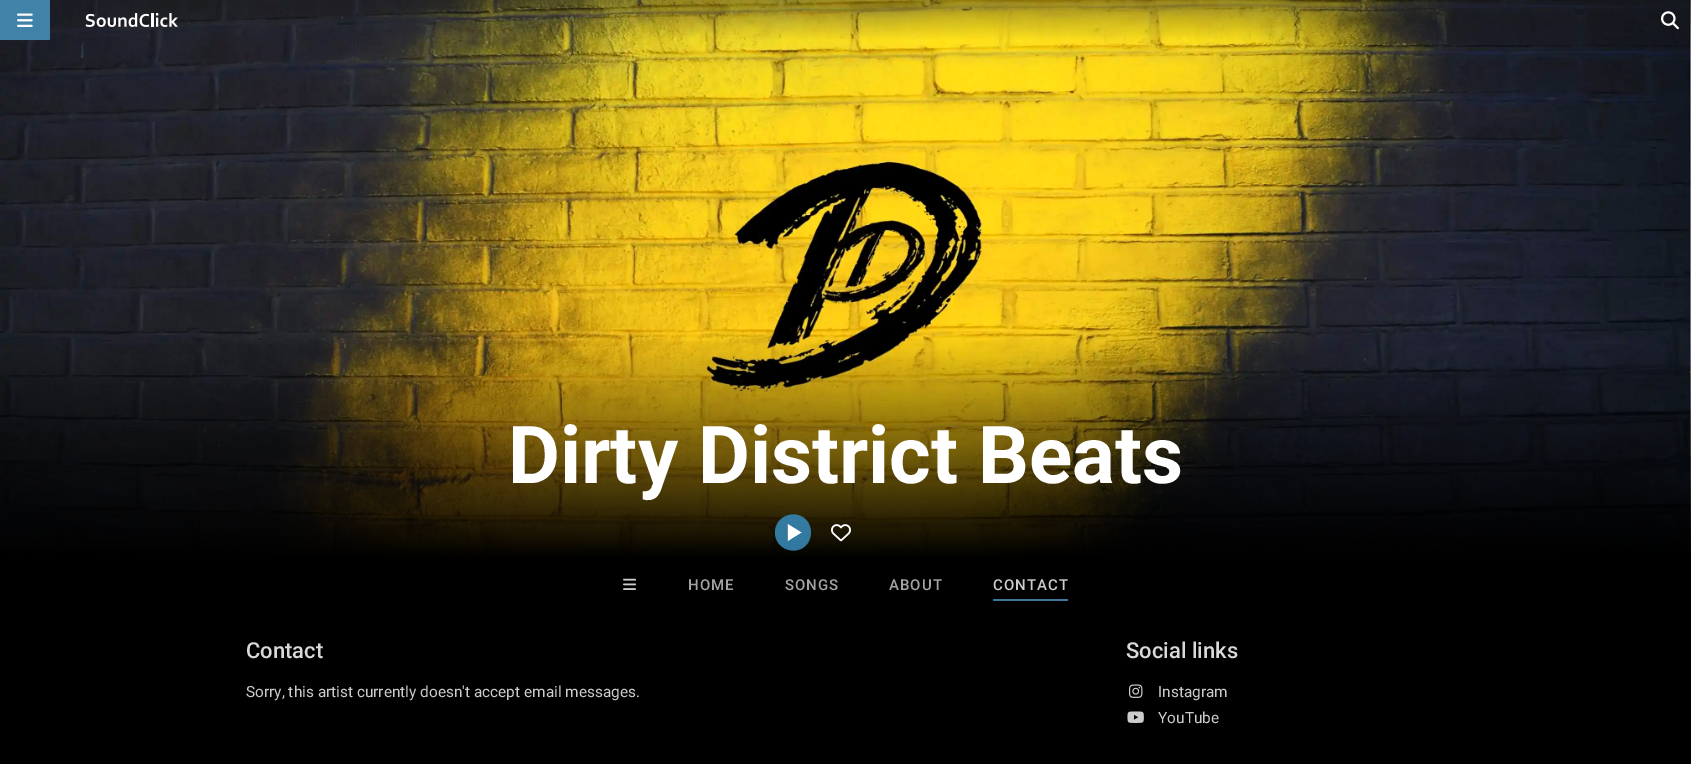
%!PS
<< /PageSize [1691 764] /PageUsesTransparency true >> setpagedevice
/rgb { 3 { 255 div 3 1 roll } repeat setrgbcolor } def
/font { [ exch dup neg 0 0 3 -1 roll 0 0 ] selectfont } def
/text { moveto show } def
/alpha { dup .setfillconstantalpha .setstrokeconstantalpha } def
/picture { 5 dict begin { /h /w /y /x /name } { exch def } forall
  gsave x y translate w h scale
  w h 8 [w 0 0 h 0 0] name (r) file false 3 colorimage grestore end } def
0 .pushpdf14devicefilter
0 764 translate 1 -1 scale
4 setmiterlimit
0 0 0 rgb
0 0 1691 764 rectfill
(img_04.rgb) 0 0 1691 558 picture
65 131 168 rgb
0 0 50 40 rectfill
(img_01.rgb) 17 13 16 14 picture
(img_02.rgb) 85 13 93 14 picture
(img_03.rgb) 1661 11 18 19 picture
255 255 255 rgb
787.5 541.5 moveto 0 -18 rlineto 14.5 9 rlineto closepath fill
0.9 alpha
54 133 178 rgb
775 532.5 moveto 0 18 24 25 33.5 9.5 rcurveto 1.5 -3 2.5 -6.5 2.5 -9.5 rcurveto 0 -3.5 -1 -6.5 -2.5 -9.5 rcurveto -9.5 -15.5 -33.5 -8.5 -33.5 9.5 rcurveto closepath 787.5 523.5 moveto 14.5 9 rlineto -14.5 9 rlineto closepath fill
1 alpha
(img_05.rgb) 831 524 20 18 picture
(img_06.rgb) 623 578 14 12 picture
59 119 153 rgb
993 599 75 2 rectfill
(img_07.rgb) 1129 684 14 14 picture
(img_08.rgb) 1127 711 17 12 picture
/Roboto-Bold 80 font
255 255 255 rgb
(Dirty District Beats) 508 483 text
/Roboto-Medium 15 font
163 163 163 rgb
688 590 moveto 1 0 (HOME) ashow
785 590 moveto 1 0 (SONGS) ashow
889 590 moveto 1 0 (ABOUT) ashow
204 204 204 rgb
993 590 moveto 1 0 (CONTACT) ashow
/Roboto-Medium 22 font
217 217 217 rgb
(Contact) 246 658 text
/Roboto-Regular 15.4 font
204 204 204 rgb
(Sorry, this artist currently doesn't accept email messages.) 246 697 text
/Roboto-Medium 22 font
217 217 217 rgb
(Social links) 1126 658 text
/Roboto-Regular 15.4 font
204 204 204 rgb
(Instagram) 1158 697 text
(YouTube) 1158 723 text
.poppdf14devicefilter showpage
